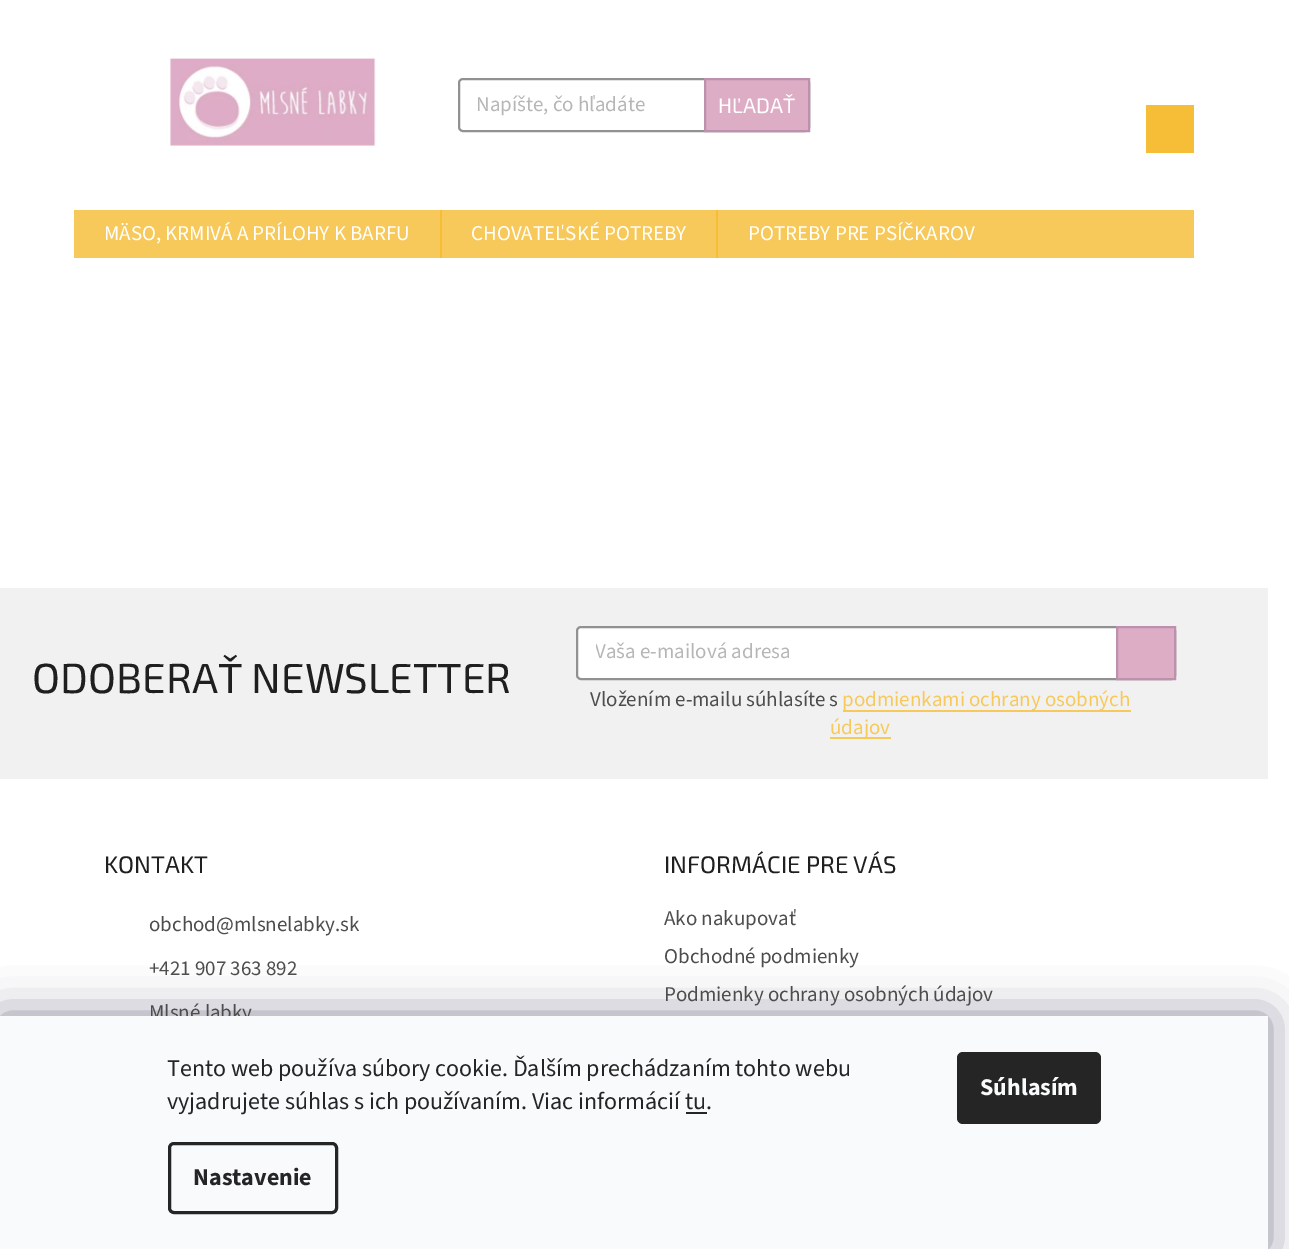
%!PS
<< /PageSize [1289 1249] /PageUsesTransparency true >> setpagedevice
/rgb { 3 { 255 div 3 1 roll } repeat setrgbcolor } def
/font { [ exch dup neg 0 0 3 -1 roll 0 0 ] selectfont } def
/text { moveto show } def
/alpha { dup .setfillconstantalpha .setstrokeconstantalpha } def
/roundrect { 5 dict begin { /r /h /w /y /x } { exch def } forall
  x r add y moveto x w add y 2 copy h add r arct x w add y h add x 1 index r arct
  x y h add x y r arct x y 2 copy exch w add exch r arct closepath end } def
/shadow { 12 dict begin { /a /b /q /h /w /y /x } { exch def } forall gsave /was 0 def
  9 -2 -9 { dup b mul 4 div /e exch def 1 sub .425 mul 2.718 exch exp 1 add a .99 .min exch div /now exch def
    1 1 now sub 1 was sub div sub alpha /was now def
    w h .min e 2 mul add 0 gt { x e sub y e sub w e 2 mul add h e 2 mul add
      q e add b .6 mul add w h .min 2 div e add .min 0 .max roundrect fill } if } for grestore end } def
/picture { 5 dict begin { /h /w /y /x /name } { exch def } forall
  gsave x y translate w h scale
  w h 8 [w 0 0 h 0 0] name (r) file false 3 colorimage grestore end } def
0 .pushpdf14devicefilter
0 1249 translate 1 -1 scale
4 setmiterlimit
255 255 255 rgb
0 0 1289 1249 rectfill
(img_01.rgb) 170 58 206 88 picture
145 145 145 rgb
2 setlinewidth
459 79 350 52 4 roundrect stroke
221 172 197 rgb
705 79 moveto 104 0 rlineto 0 52 rlineto -104 0 rlineto closepath gsave fill grestore
189 144 174 rgb
stroke
246 189 55 rgb
1146 105 48 48 rectfill
247 201 91 rgb
74 210 1120 48 rectfill
246 189 55 rgb
440 210 2 48 rectfill
716 210 2 48 rectfill
241 241 241 rgb
0 588 1268 191 rectfill
255 255 255 rgb
577 627 598 52 4 roundrect gsave fill grestore
145 145 145 rgb
stroke
221 172 197 rgb
1117 627 moveto 58 0 rlineto 0 52 rlineto -58 0 rlineto closepath gsave fill grestore
189 144 174 rgb
stroke
247 201 91 rgb
843 710 288 2 rectfill
830 737 61 2 rectfill
27 25 57 rgb
0 1016 1268 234 0 22.5 0.5 shadow
/SourceSans3-Regular 21 font
182 182 182 rgb
(Napíšte, čo hľadáte) 476 111 text
/Exo2-Regular 21 font
255 255 255 rgb
(HĽADAŤ) 718 113 text
/SourceSans3-Regular 21 font
(MÄSO, KRMIVÁ A PRÍLOHY K BARFU) 104 240 text
(CHOVATEĽSKÉ POTREBY) 471 240 text
(POTREBY PRE PSÍČKAROV) 748 240 text
/Exo2-Regular 42 font
31 31 31 rgb
(ODOBERAŤ NEWSLETTER) 32 693 text
gsave
596 638 474 30 rectclip
/SourceSans3-Regular 21 font
182 182 182 rgb
(Vaša e-mailová adresa) 595 658 text
grestore
/SourceSans3-Regular 21 font
77 77 77 rgb
(Vložením e-mailu súhlasíte s) 590 706 text
247 201 91 rgb
(podmienkami ochrany osobných) 842 706 text
(údajov) 830 734 text
/Exo2-Regular 24 font
31 31 31 rgb
(KONTAKT) 104 873 text
/SourceSans3-Regular 21 font
77 77 77 rgb
(obchod@mlsnelabky.sk) 149 931 text
(+421 907 363 892) 149 975 text
(Mlsné labky) 149 1019 text
/Exo2-Regular 24 font
31 31 31 rgb
(INFORMÁCIE PRE VÁS) 664 873 text
/SourceSans3-Regular 21 font
77 77 77 rgb
(Ako nakupovať) 664 925 text
(Obchodné podmienky) 664 963 text
(Podmienky ochrany osobných údajov) 664 1001 text
248 250 251 rgb
0 1016 1268 233 rectfill
/SourceSans3-Regular 24 font
37 37 37 rgb
(Tento web používa súbory cookie. Ďalším prechádzaním tohto webu) 167 1076 text
(vyjadrujete súhlas s ich používaním. Viac informácií tu.) 167 1109 text
686 1112 21 2 rectfill
3 setlinewidth
169.5 1143.5 167 69 4.5 roundrect stroke
/SourceSans3-Bold 24 font
(Nastavenie) 193 1185 text
957 1052 144 72 6 roundrect fill
248 250 251 rgb
(Súhlasím) 980 1095 text
.poppdf14devicefilter showpage
